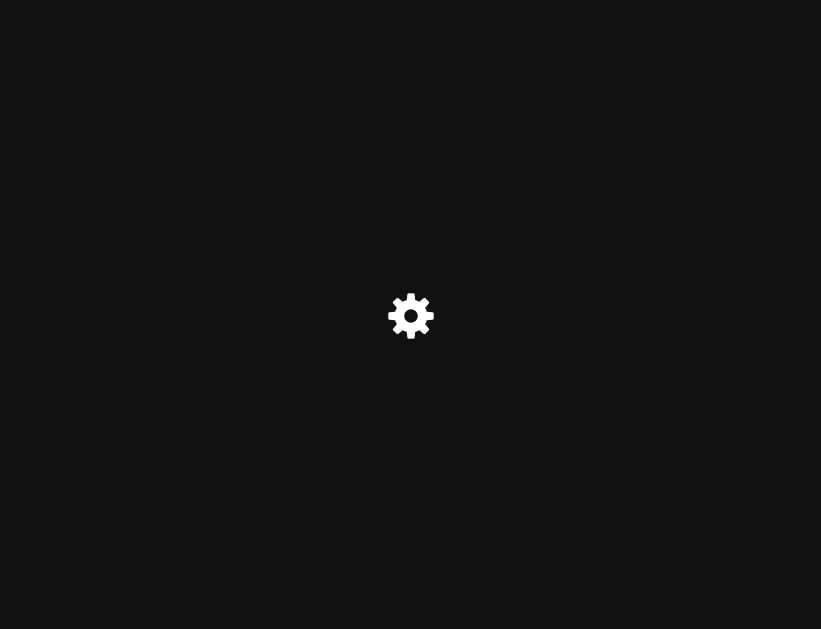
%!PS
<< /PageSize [821 629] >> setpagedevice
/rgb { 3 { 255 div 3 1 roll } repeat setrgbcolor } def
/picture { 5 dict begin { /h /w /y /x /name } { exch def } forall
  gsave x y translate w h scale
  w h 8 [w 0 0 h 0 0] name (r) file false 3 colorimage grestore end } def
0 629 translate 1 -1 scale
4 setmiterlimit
17 17 17 rgb
0 0 821 629 rectfill
(img_01.rgb) 388 293 46 46 picture
showpage
